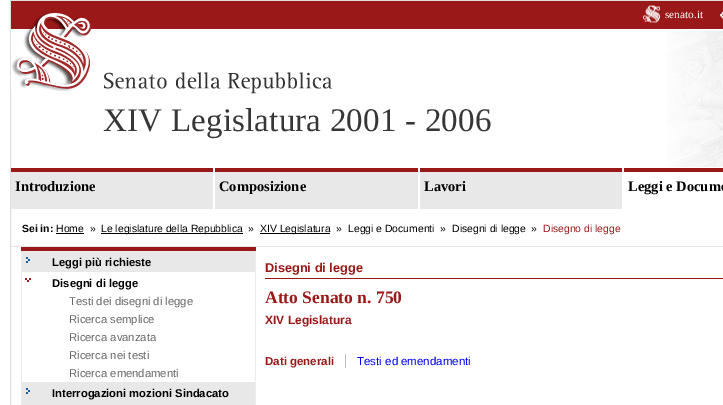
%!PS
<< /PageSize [723 405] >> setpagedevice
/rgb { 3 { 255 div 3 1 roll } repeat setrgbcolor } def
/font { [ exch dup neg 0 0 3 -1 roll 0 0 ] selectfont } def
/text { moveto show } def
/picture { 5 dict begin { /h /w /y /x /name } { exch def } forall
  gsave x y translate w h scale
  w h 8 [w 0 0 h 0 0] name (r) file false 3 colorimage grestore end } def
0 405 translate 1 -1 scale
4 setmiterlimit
255 255 255 rgb
0 0 723 405 rectfill
223 223 223 rgb
10.5 0.5 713 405 rectstroke
(img_01.rgb) 667 31 56 136 picture
155 24 24 rgb
379 1 344 28 rectfill
(img_02.rgb) 643 5 17 18 picture
(img_03.rgb) 720 11 3 8 picture
(img_04.rgb) 11 1 368 93 picture
232 232 232 rgb
11 172 202 37 rectfill
155 24 24 rgb
11 168 202 4 rectfill
232 232 232 rgb
215 172 203 37 rectfill
155 24 24 rgb
215 168 203 4 rectfill
232 232 232 rgb
420 172 202 37 rectfill
155 24 24 rgb
420 168 202 4 rectfill
624 168 99 4 rectfill
229 229 229 rgb
11 246 712 1 rectfill
0 0 0 rgb
56 233 28 1 rectfill
101 233 142 1 rectfill
260 233 70 1 rectfill
232 232 232 rgb
22 251 233 154 rectfill
155 24 24 rgb
21 247 235 4 rectfill
237 237 237 rgb
255 251 1 154 rectfill
21 251 1 154 rectfill
(img_05.rgb) 26 257 4 6 picture
255 255 255 rgb
22 272 233 110 rectfill
(img_06.rgb) 25 278 6 4 picture
(img_05.rgb) 26 388 4 6 picture
155 24 24 rgb
265 278 458 1 rectfill
188 188 188 rgb
345 354 1 14 rectfill
/LiberationSerif-Regular 11.25 font
255 255 255 rgb
(senato.it) 665 18 text
/LiberationSerif-Regular 33 font
56 53 53 rgb
103 131 moveto 0.2 0 (XIV Legislatura 2001 - 2006) ashow
/LiberationSerif-Bold 14.5 font
0 0 0 rgb
(Introduzione) 15 191 text
(Composizione) 219 191 text
(Lavori) 424 191 text
(Leggi e Docume) 628 191 text
/LiberationSans-Bold 10.4 font
(Sei in:) 22 232 text
/LiberationSans-Regular 10.4 font
(Home) 56 232 text
(») 90 232 text
(Le legislature della Repubblica) 101 232 text
(») 248 232 text
(XIV Legislatura) 260 232 text
(») 336 232 text
(Leggi e Documenti) 348 232 text
(») 440 232 text
(Disegni di legge) 452 232 text
(») 531 232 text
155 24 24 rgb
(Disegno di legge) 543 232 text
/LiberationSans-Bold 11.25 font
0 0 0 rgb
(Leggi più richieste) 52 266 text
(Disegni di legge) 52 287 text
/LiberationSans-Regular 11.25 font
102 102 102 rgb
(Testi dei disegni di legge) 69 305 text
(Ricerca semplice) 69 323 text
(Ricerca avanzata) 69 341 text
(Ricerca nei testi) 69 359 text
(Ricerca emendamenti) 69 377 text
/LiberationSans-Bold 11.25 font
0 0 0 rgb
(Interrogazioni mozioni Sindacato) 52 397 text
/LiberationSans-Bold 12.75 font
155 24 24 rgb
(Disegni di legge) 265 272 text
/LiberationSerif-Bold 17.5 font
(Atto Senato n. 750) 265 303 text
/LiberationSans-Bold 12 font
(XIV Legislatura) 265 324 text
/LiberationSans-Bold 11.5 font
(Dati generali) 265 365 text
/LiberationSans-Regular 11.5 font
0 0 255 rgb
(Testi ed emendamenti) 357 365 text
showpage
